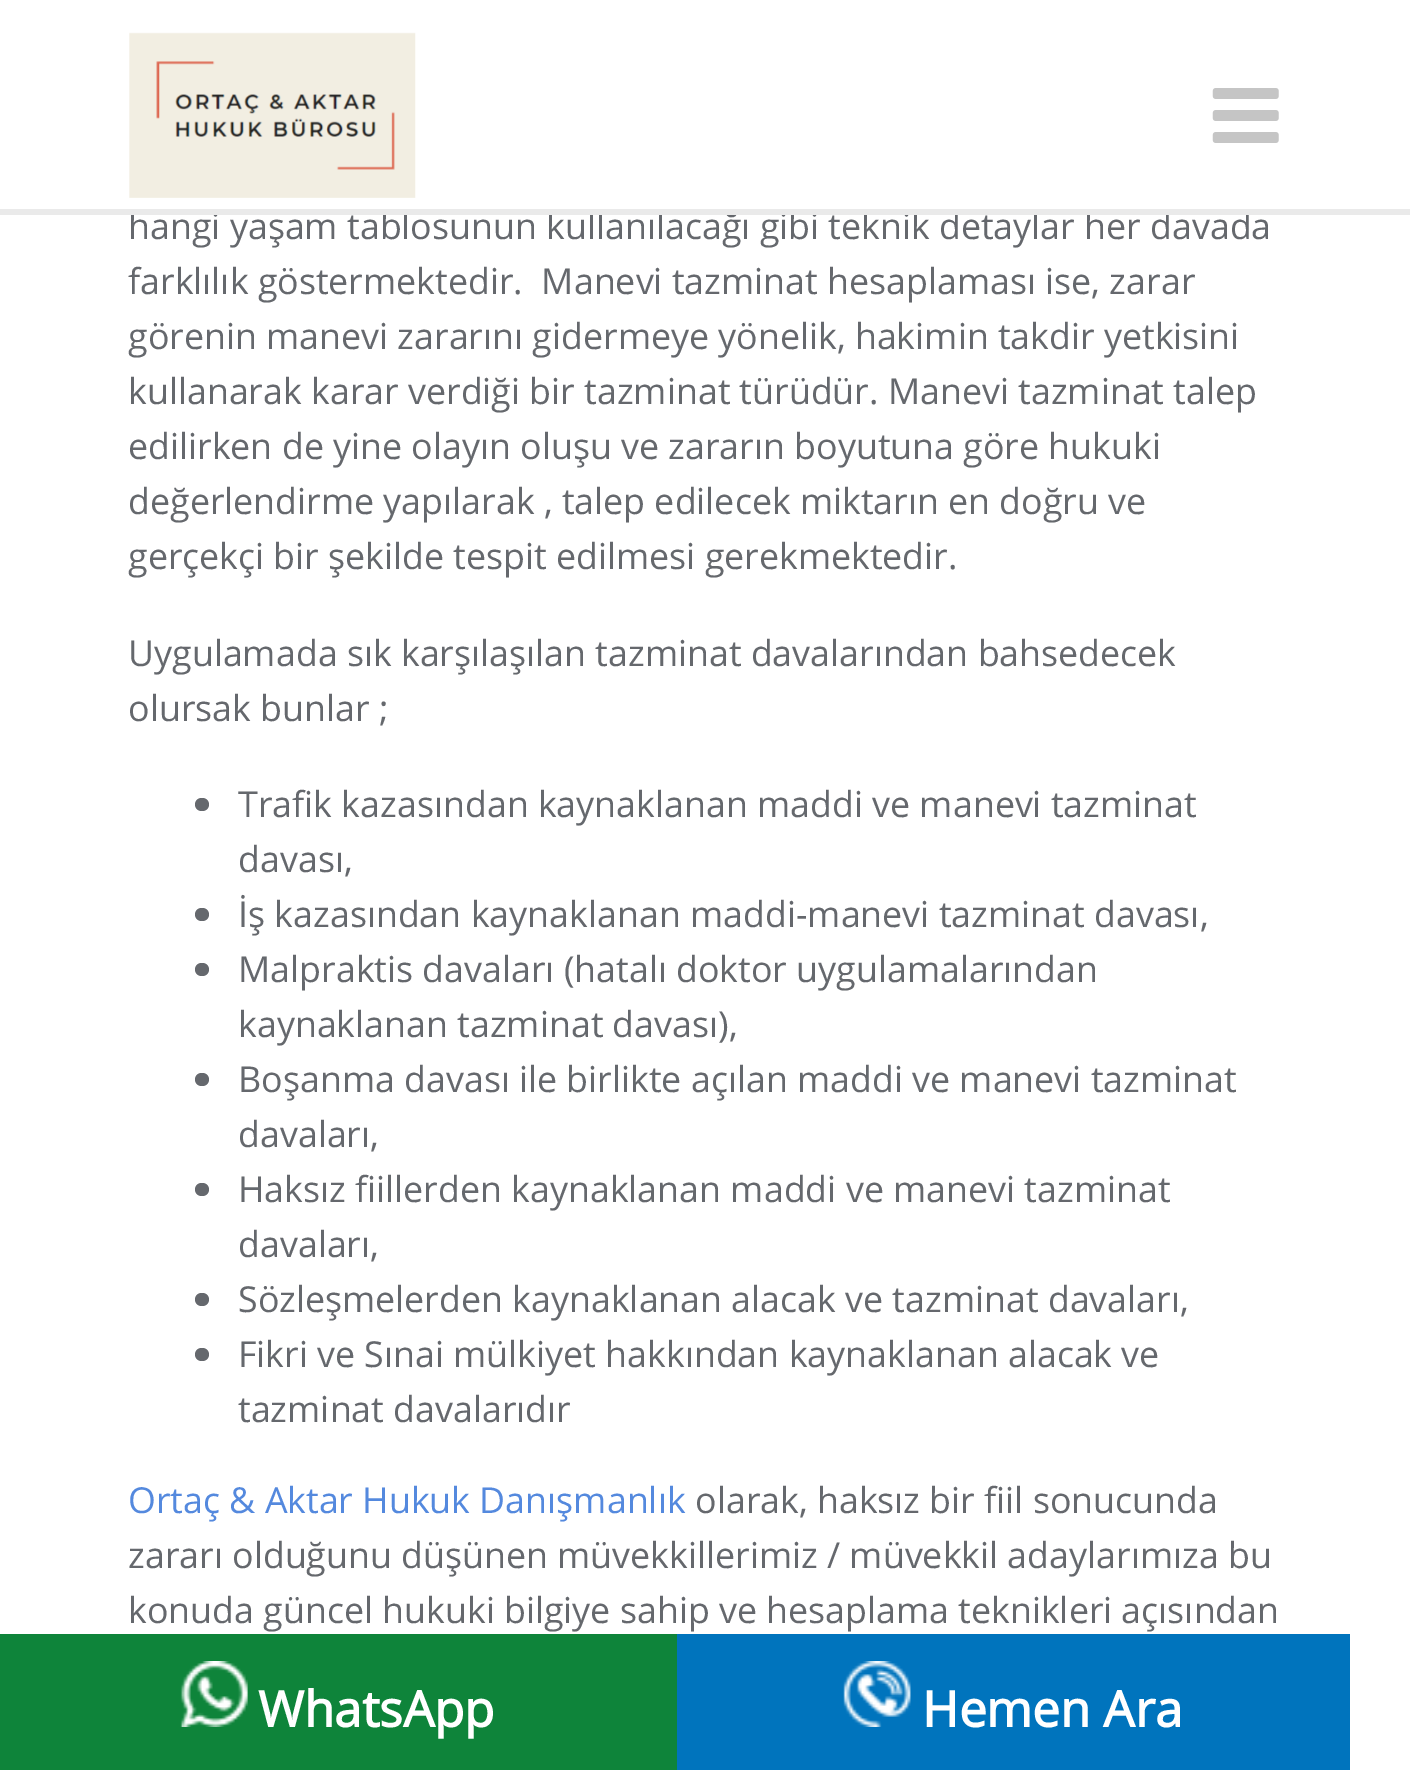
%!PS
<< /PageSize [1410 1770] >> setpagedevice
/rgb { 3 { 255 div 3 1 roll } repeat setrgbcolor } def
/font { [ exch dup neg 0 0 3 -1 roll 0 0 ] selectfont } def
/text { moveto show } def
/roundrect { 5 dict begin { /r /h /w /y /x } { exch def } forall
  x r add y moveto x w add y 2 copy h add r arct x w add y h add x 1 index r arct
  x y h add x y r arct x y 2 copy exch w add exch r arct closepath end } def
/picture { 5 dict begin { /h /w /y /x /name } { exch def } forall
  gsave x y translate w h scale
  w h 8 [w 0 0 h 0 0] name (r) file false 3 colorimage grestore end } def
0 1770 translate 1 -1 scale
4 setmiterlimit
255 255 255 rgb
0 0 1410 1770 rectfill
(img_01.rgb) 129 32 287 166 picture
(img_02.rgb) 1212 88 67 55 picture
101 104 109 rgb
195 798 14 13 6.5 roundrect fill
195 908 14 13 6.5 roundrect fill
195 963 14 13 6.5 roundrect fill
195 1073 14 13 6.5 roundrect fill
195 1183 14 13 6.5 roundrect fill
195 1293 14 13 6.5 roundrect fill
195 1348 14 13 6.5 roundrect fill
14 132 58 rgb
0 1634 677 136 rectfill
(img_03.rgb) 180 1661 68 66 picture
0 116 189 rgb
677 1634 673 136 rectfill
(img_04.rgb) 843 1661 68 66 picture
/OpenSans-Regular 35.75 font
101 104 109 rgb
(hangi yaşam tablosunun kullanılacağı gibi teknik detaylar her davada) 128 239 text
234 234 234 rgb
0 209 1410 6 rectfill
101 104 109 rgb
(farklılık göstermektedir.  Manevi tazminat hesaplaması ise, zarar) 128 294 text
(görenin manevi zararını gidermeye yönelik, hakimin takdir yetkisini) 128 349 text
(kullanarak karar verdiği bir tazminat türüdür. Manevi tazminat talep) 128 404 text
(edilirken de yine olayın oluşu ve zararın boyutuna göre hukuki) 128 459 text
(değerlendirme yapılarak , talep edilecek miktarın en doğru ve) 128 514 text
(gerçekçi bir şekilde tespit edilmesi gerekmektedir.) 128 569 text
(Uygulamada sık karşılaşılan tazminat davalarından bahsedecek) 128 666 text
(olursak bunlar ;) 128 721 text
(Trafik kazasından kaynaklanan maddi ve manevi tazminat) 238 817 text
(davası,) 238 872 text
(İş kazasından kaynaklanan maddi-manevi tazminat davası,) 238 927 text
(Malpraktis davaları \(hatalı doktor uygulamalarından) 238 982 text
(kaynaklanan tazminat davası\),) 238 1037 text
(Boşanma davası ile birlikte açılan maddi ve manevi tazminat) 238 1092 text
(davaları,) 238 1147 text
(Haksız fiillerden kaynaklanan maddi ve manevi tazminat) 238 1202 text
(davaları,) 238 1257 text
(Sözleşmelerden kaynaklanan alacak ve tazminat davaları,) 238 1312 text
(Fikri ve Sınai mülkiyet hakkından kaynaklanan alacak ve) 238 1367 text
(tazminat davalarıdır) 238 1422 text
84 137 222 rgb
(Ortaç & Aktar Hukuk Danışmanlık) 128 1513 text
101 104 109 rgb
(olarak, haksız bir fiil sonucunda) 695 1513 text
(zararı olduğunu düşünen müvekkillerimiz / müvekkil adaylarımıza bu) 128 1568 text
(konuda güncel hukuki bilgiye sahip ve hesaplama teknikleri açısından) 128 1623 text
/OpenSans-Bold 49.5 font
255 255 255 rgb
(WhatsApp) 258 1727 text
(Hemen Ara) 922 1727 text
showpage
